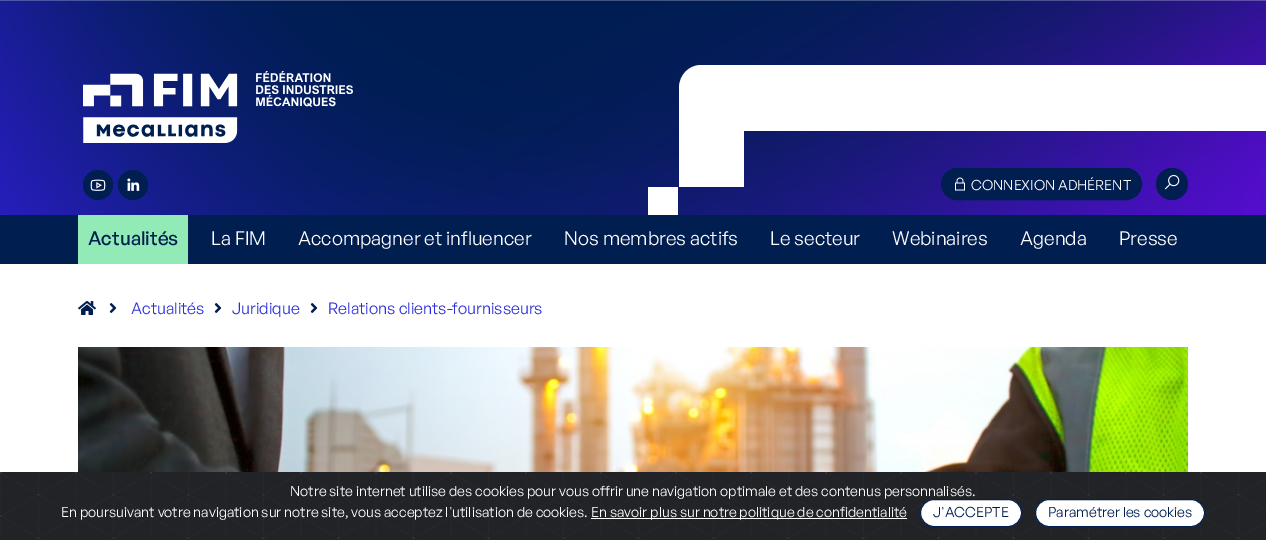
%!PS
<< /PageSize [1266 540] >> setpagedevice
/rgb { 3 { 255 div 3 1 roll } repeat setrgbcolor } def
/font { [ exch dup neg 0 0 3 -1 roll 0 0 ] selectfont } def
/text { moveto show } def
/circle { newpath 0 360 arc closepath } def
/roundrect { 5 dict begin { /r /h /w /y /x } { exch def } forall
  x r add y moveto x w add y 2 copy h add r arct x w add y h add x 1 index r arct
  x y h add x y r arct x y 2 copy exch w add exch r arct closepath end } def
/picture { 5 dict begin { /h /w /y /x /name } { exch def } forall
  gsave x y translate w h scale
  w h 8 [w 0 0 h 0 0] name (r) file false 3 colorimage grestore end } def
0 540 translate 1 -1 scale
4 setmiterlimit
255 255 255 rgb
0 0 1266 540 rectfill
(img_01.rgb) 0 0 1266 215 picture
(img_02.rgb) 83 71 270 72 picture
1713 65 moveto -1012 0 rlineto -12 0 -22 10 -22 23 rcurveto 0 99 rlineto 65 0 rlineto 0 -56 rlineto 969 0 rlineto closepath fill
648 187 30 28 rectfill
0 30 80 rgb
98 185 15 circle fill
(img_03.rgb) 90 179 16 12 picture
133 185 15 circle fill
(img_04.rgb) 127 178 13 13 picture
941.5 168.5 200 31 15.5 roundrect gsave fill grestore
stroke
(img_05.rgb) 955 177 10 14 picture
1172 184 16 circle fill
(img_06.rgb) 1164 174 16 16 picture
0 215 1266 49 rectfill
146 234 182 rgb
78 215 110 49 rectfill
(img_07.rgb) 78 301 18 14 picture
(img_08.rgb) 109 303 8 10 picture
(img_08.rgb) 214 303 8 10 picture
(img_08.rgb) 310 303 8 10 picture
(img_09.rgb) 78 347 1110 125 picture
(img_10.rgb) 0 472 1266 68 picture
255 255 255 rgb
591 518 316 1 rectfill
920.5 499.5 101 27 13.5 roundrect gsave fill grestore
0 30 80 rgb
stroke
255 255 255 rgb
1035.5 499.5 169 27 13.5 roundrect gsave fill grestore
0 30 80 rgb
stroke
/GeneralSans-Regular 14 font
255 255 255 rgb
(CONNEXION ADHÉRENT) 971 190 text
/GeneralSans-Medium 19 font
0 30 80 rgb
(Actualités) 88 245 text
/GeneralSans-Regular 19 font
255 255 255 rgb
(La FIM) 211 245 text
(Accompagner et influencer) 298 245 text
(Nos membres actifs) 564 245 text
(Le secteur) 770 245 text
(Webinaires) 892 245 text
(Agenda) 1020 245 text
(Presse) 1119 245 text
/GeneralSans-Regular 16 font
45 45 219 rgb
(Actualités) 131 314 text
(Juridique) 232 314 text
(Relations clients-fournisseurs) 328 314 text
/GeneralSans-Regular 14 font
255 255 255 rgb
(Notre site internet utilise des cookies pour vous offrir une navigation optimale et des contenus personnalisés.) 290 496 text
(En poursuivant votre navigation sur notre site, vous acceptez l'utilisation de cookies.) 61 517 text
(En savoir plus sur notre politique de confidentialité) 591 517 text
0 30 80 rgb
(J'ACCEPTE) 933 517 text
(Paramétrer les cookies) 1048 517 text
showpage
